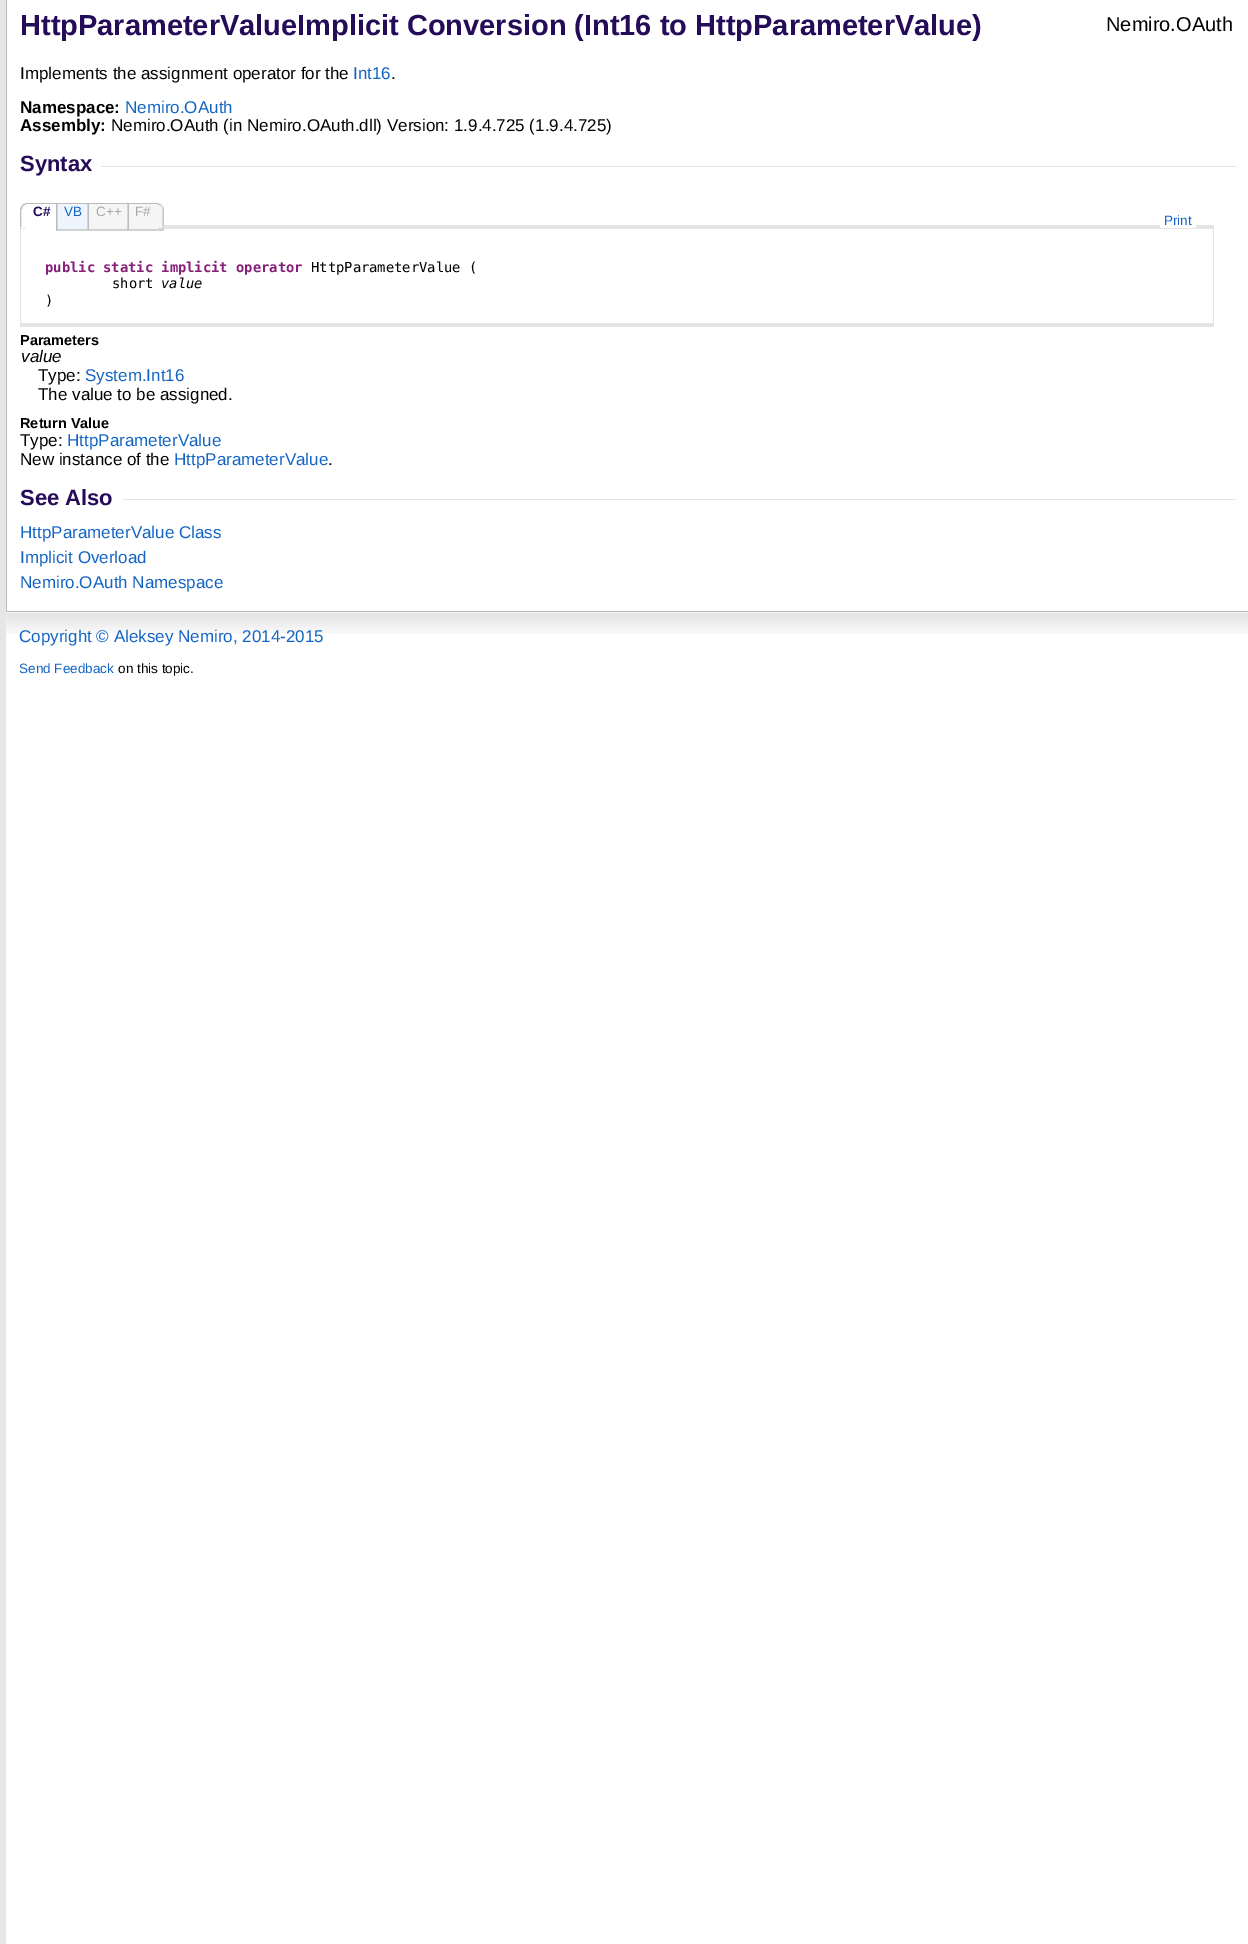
%!PS
<< /PageSize [1248 1944] >> setpagedevice
/rgb { 3 { 255 div 3 1 roll } repeat setrgbcolor } def
/font { [ exch dup neg 0 0 3 -1 roll 0 0 ] selectfont } def
/text { moveto show } def
/picture { 5 dict begin { /h /w /y /x /name } { exch def } forall
  gsave x y translate w h scale
  w h 8 [w 0 0 h 0 0] name (r) file false 3 colorimage grestore end } def
0 1944 translate 1 -1 scale
4 setmiterlimit
255 255 255 rgb
0 0 1248 1944 rectfill
230 230 230 rgb
0 0 6 1944 rectfill
187 187 187 rgb
6 0 1 611 rectfill
229 229 229 rgb
101 166 1135 1 rectfill
1213 225 1 101 rectfill
20 323 1194 4 rectfill
20 225 1 101 rectfill
21 225 1192 4 rectfill
255 255 255 rgb
20 225 6 3 rectfill
(img_01.rgb) 20 202 7 26 picture
26 204 30 25 rectfill
187 187 187 rgb
26 203 132 1 rectfill
239 245 255 rgb
56 204 32 27 rectfill
208 210 210 rgb
87.5 231 moveto -31.5 0 rlineto 1.5 -2 rlineto 30 0 rlineto closepath fill
187 187 187 rgb
56 231 moveto 0 -28.5 rlineto 1.5 1.5 rlineto 0 25 rlineto closepath fill
245 245 245 rgb
88 204 70 27 rectfill
208 210 210 rgb
128 231 moveto -40 0 rlineto 1 -2 rlineto 39 0 rlineto closepath fill
187 187 187 rgb
87.5 231 moveto 0 -28.5 rlineto 1.5 1.5 rlineto 0 25 rlineto closepath fill
208 210 210 rgb
157.5 231 moveto -30 0 rlineto 1.5 -2 rlineto 28.5 0 rlineto closepath fill
187 187 187 rgb
127.5 231 moveto 0 -28.5 rlineto 1.5 1.5 rlineto 0 25 rlineto closepath fill
245 245 245 rgb
158 203 6 27 rectfill
(img_02.rgb) 157 202 7 26 picture
208 210 210 rgb
158 228 6 3 rectfill
255 255 255 rgb
1160 225 36 3 rectfill
229 229 229 rgb
123 499 1113 1 rectfill
(img_03.rgb) 6 612 1242 22 picture
187 187 187 rgb
6 611 1242 1 rectfill
/LiberationSans-Bold 29 font
37 12 88 rgb
(HttpParameterValueImplicit Conversion \(Int16 to HttpParameterValue\)) 20 35 text
/LiberationSans-Regular 20 font
0 0 0 rgb
(Nemiro.OAuth) 1106 31 text
/LiberationSans-Regular 17 font
(Implements the assignment operator for the) 20 79 text
19 100 196 rgb
(Int16) 353 79 text
0 0 0 rgb
(.) 391 79 text
/LiberationSans-Bold 17 font
(Namespace:) 20 113 text
/LiberationSans-Regular 17 font
19 100 196 rgb
(Nemiro.OAuth) 125 113 text
/LiberationSans-Bold 17 font
0 0 0 rgb
(Assembly:) 20 131 text
/LiberationSans-Regular 17 font
(Nemiro.OAuth \(in Nemiro.OAuth.dll\) Version: 1.9.4.725 \(1.9.4.725\)) 111 131 text
/LiberationSans-Bold 22 font
37 12 88 rgb
(Syntax) 20 171 text
/LiberationSans-Bold 13.5 font
(C#) 33 216 text
/LiberationSans-Regular 13.5 font
19 100 196 rgb
(VB) 64 216 text
168 168 168 rgb
(C++) 96 216 text
(F#) 135 216 text
19 100 196 rgb
(Print) 1164 225 text
/DejaVuSansMono-Bold 13.8 font
135 31 120 rgb
(public static implicit operator) 45 272 text
/DejaVuSansMono-Regular 13.8 font
0 0 0 rgb
(HttpParameterValue \() 311 272 text
(short) 112 288 text
/DejaVuSansMono-Italic 13.8 font
(value) 161 288 text
/DejaVuSansMono-Regular 13.8 font
(\)) 45 305 text
/LiberationSans-Bold 14.5 font
(Parameters) 20 345 text
/LiberationSans-Italic 17 font
(value) 21 362 text
/LiberationSans-Regular 17 font
(Type:) 38 381 text
19 100 196 rgb
(System.Int16) 85 381 text
0 0 0 rgb
(The value to be assigned.) 38 400 text
/LiberationSans-Bold 14.5 font
(Return Value) 20 428 text
/LiberationSans-Regular 17 font
(Type:) 20 446 text
19 100 196 rgb
(HttpParameterValue) 67 446 text
0 0 0 rgb
(New instance of the) 20 465 text
19 100 196 rgb
(HttpParameterValue) 174 465 text
0 0 0 rgb
(.) 328 465 text
/LiberationSans-Bold 22 font
37 12 88 rgb
(See Also) 20 505 text
/LiberationSans-Regular 17 font
19 100 196 rgb
(HttpParameterValue Class) 20 538 text
(Implicit Overload) 20 563 text
(Nemiro.OAuth Namespace) 20 588 text
(Copyright © Aleksey Nemiro, 2014-2015) 19 642 text
/LiberationSans-Regular 13.5 font
(Send Feedback) 19 673 text
0 0 0 rgb
(on this topic.) 118 673 text
showpage
